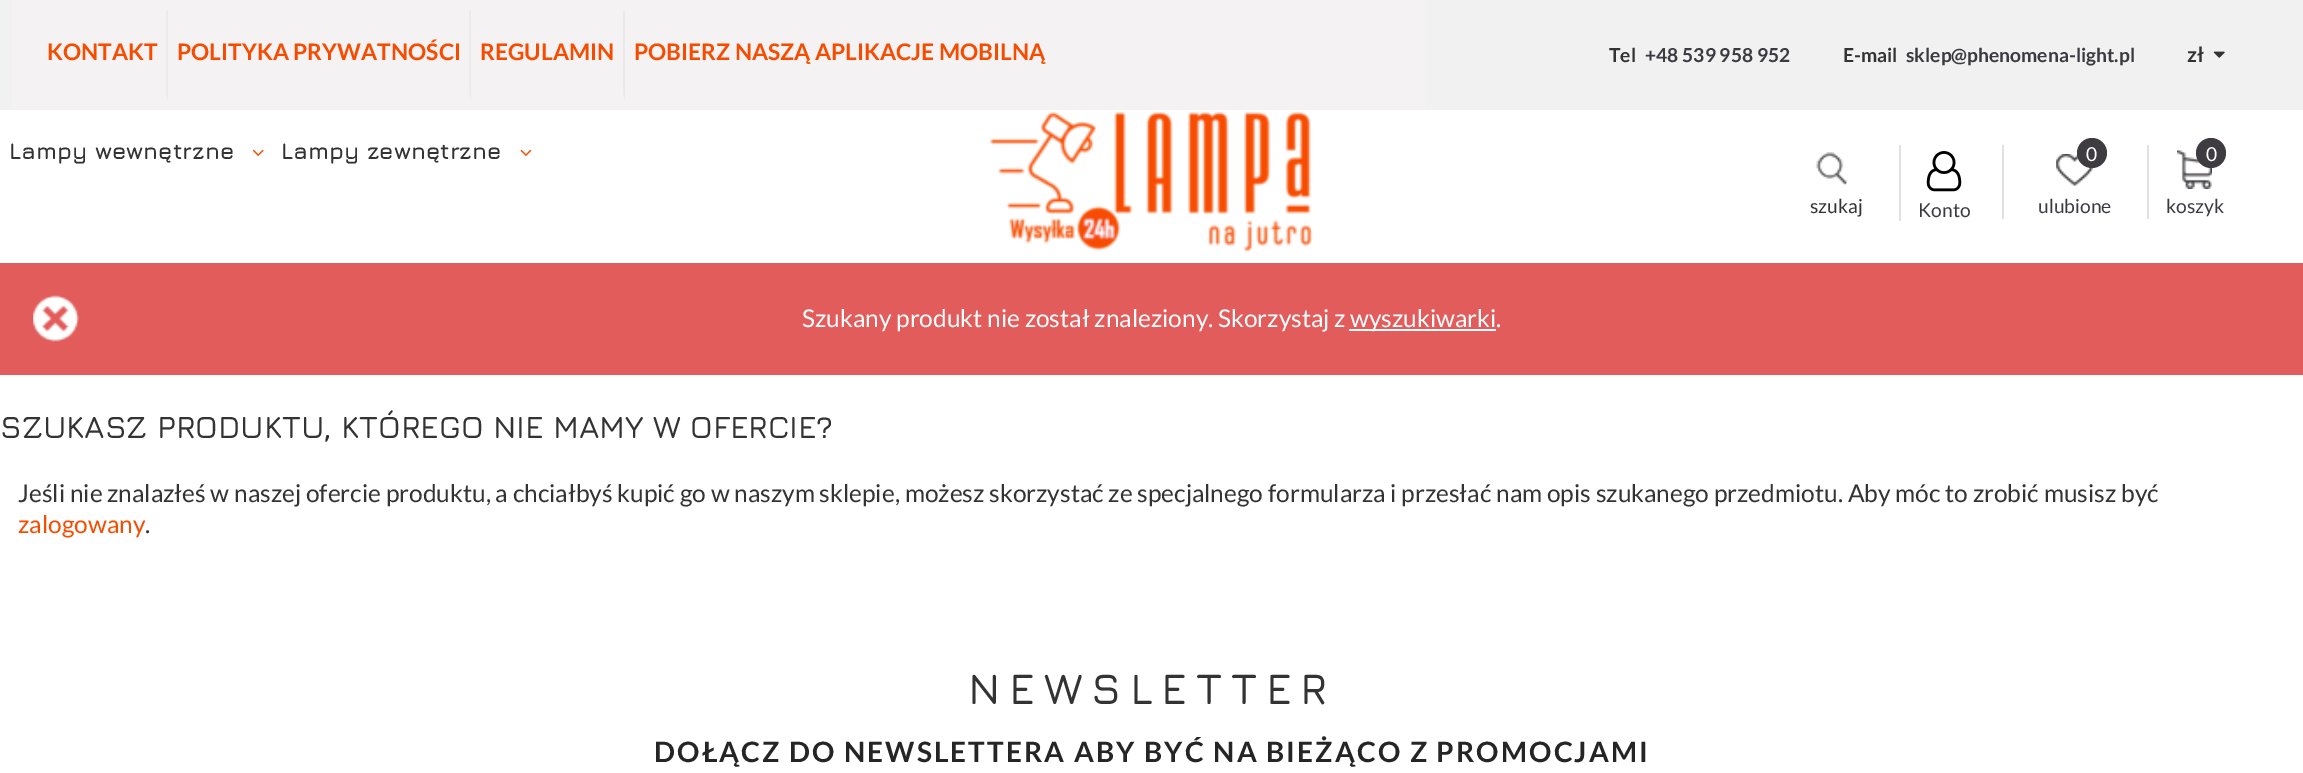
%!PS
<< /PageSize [2303 773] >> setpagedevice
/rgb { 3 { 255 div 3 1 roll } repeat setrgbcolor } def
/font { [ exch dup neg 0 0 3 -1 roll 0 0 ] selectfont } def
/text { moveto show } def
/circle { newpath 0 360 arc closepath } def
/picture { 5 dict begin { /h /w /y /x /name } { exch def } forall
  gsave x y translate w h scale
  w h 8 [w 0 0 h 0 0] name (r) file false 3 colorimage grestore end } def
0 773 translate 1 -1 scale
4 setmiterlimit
255 255 255 rgb
0 0 2303 773 rectfill
241 241 241 rgb
0 0 2303 110 rectfill
244 242 243 rgb
12 0 1413 110 rectfill
235 235 235 rgb
168 10 moveto 0 90 rlineto -2 -7 rlineto 0 -83 rlineto closepath fill
471 10 moveto 0 90 rlineto -2 -7 rlineto 0 -83 rlineto closepath fill
625 10 moveto 0 90 rlineto -2 -7 rlineto 0 -83 rlineto closepath fill
(img_01.rgb) 2213 51 12 7 picture
(img_02.rgb) 252 149 12 7 picture
(img_03.rgb) 520 149 12 7 picture
(img_04.rgb) 989 112 324 140 picture
225 225 225 rgb
1899 145 2 76 rectfill
(img_05.rgb) 1815 152 32 33 picture
2002 145 2 74 rectfill
(img_06.rgb) 1926 151 36 41 picture
2147 145 2 74 rectfill
(img_07.rgb) 2056 154 37 32 picture
62 60 64 rgb
2092 153 15 circle fill
(img_08.rgb) 2177 150 35 39 picture
2211 153 15 circle fill
227 92 92 rgb
0 263 2303 112 rectfill
(img_09.rgb) 33 295 46 47 picture
255 255 255 rgb
1349 329 147 2 rectfill
/Lato-Bold 22.75 font
247 76 0 rgb
(KONTAKT) 47 60 text
(POLITYKA PRYWATNOŚCI) 177 60 text
(REGULAMIN) 480 60 text
(POBIERZ NASZĄ APLIKACJE MOBILNĄ) 634 60 text
/Lato-Bold 19.25 font
51 51 51 rgb
(Tel) 1609 62 text
58 58 65 rgb
(+48 539 958 952) 1645 62 text
51 51 51 rgb
(E-mail) 1843 62 text
58 58 65 rgb
(sklep@phenomena-light.pl) 1906 62 text
/Lato-Bold 21 font
51 51 51 rgb
(zł) 2187 62 text
/Jura-Bold 22.75 font
(Lampy wewnętrzne) 9 159 text
(Lampy zewnętrzne) 281 159 text
/Lato-Regular 19.25 font
(szukaj) 1810 213 text
58 58 65 rgb
(Konto) 1918 217 text
255 255 255 rgb
(0) 2086 161 text
58 58 65 rgb
(ulubione) 2038 213 text
255 255 255 rgb
(0) 2206 161 text
58 58 65 rgb
(koszyk) 2166 213 text
/Lato-Regular 24.5 font
255 255 255 rgb
(Szukany produkt nie został znaleziony. Skorzystaj z) 802 327 text
(wyszukiwarki.) 1350 327 text
/Jura-SemiBold 31.6 font
51 51 51 rgb
(SZUKASZ PRODUKTU, KTÓREGO NIE MAMY W OFERCIE?) 0 438 text
/Lato-Regular 24.5 font
(Jeśli nie znalazłeś w naszej ofercie produktu, a chciałbyś kupić go w naszym sklepie, możesz skorzystać ze specjalnego formularza i przesłać nam opis szukanego przedmiotu. Aby móc to zrobić musisz być) 18 502 text
247 76 0 rgb
(zalogowany) 18 533 text
51 51 51 rgb
(.) 145 533 text
/Jura-SemiBold 43.75 font
968 704 moveto 8.75 0 (NEWSLETTER) ashow
/Lato-Bold 28 font
37 37 37 rgb
654 762 moveto 2.1 0 (DOŁĄCZ DO NEWSLETTERA ABY BYĆ NA BIEŻĄCO Z PROMOCJAMI) ashow
showpage
